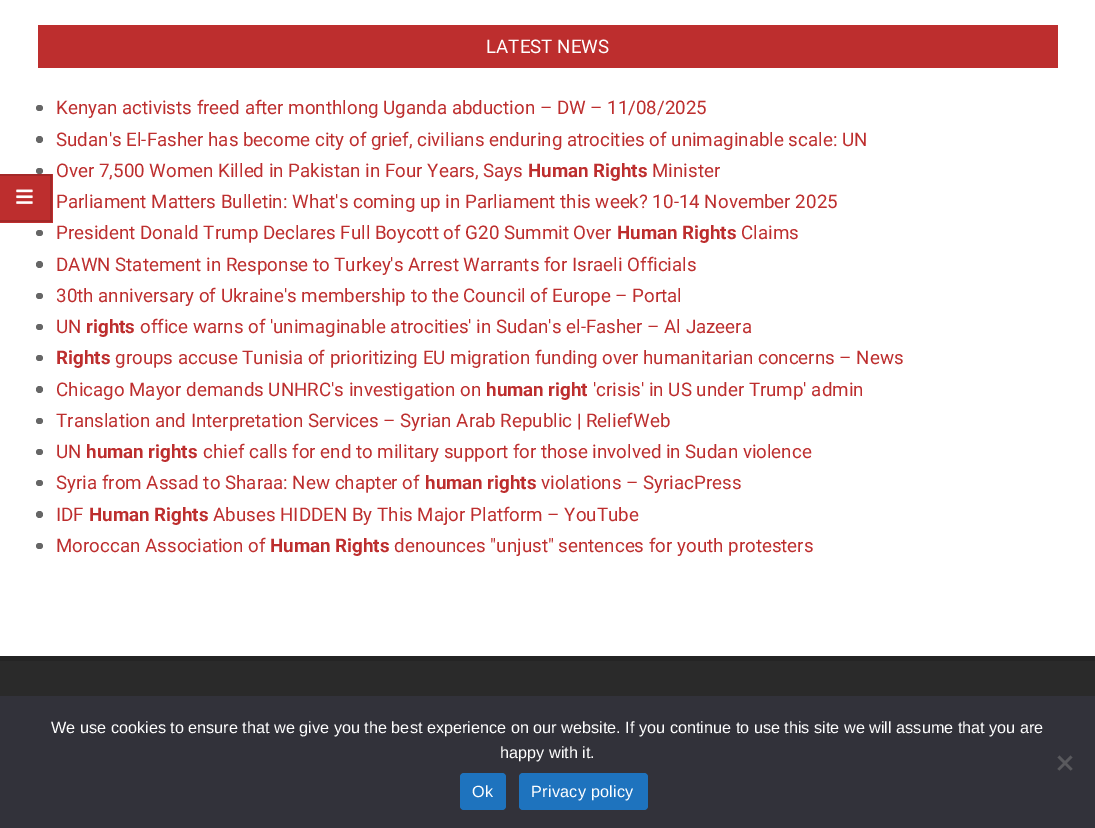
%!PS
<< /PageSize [1095 828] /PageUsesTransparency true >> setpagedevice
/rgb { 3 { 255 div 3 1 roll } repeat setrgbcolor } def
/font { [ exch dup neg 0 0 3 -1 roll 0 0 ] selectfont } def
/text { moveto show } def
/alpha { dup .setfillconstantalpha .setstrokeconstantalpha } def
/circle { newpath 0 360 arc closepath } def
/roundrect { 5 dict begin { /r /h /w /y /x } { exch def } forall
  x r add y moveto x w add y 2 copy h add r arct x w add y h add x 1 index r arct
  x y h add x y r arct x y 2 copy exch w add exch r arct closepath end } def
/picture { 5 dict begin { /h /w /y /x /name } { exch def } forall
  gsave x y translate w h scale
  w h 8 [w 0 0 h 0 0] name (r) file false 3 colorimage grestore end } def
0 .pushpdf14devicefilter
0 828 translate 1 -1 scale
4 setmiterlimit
255 255 255 rgb
0 0 1095 828 rectfill
189 46 46 rgb
0 174 53 49 rectfill
163 40 40 rgb
0 174 moveto 52 0 rlineto -2 2 rlineto -50 0 rlineto closepath fill
0.14 alpha
0 0 0 rgb
52 174 moveto 0 48 rlineto -2 -2 rlineto 0 -44 rlineto closepath fill
52 222 moveto -52 0 rlineto 0 -2 rlineto 50 0 rlineto closepath fill
1 alpha
(img_01.rgb) 16 189 17 15 picture
189 46 46 rgb
38 25 1020 43 rectfill
102 102 102 rgb
36 105 7 6 3 roundrect fill
39.5 139.5 3.5 circle fill
36 168 7 6 3 roundrect fill
36 230 7 6 3 roundrect fill
39.5 264.5 3.5 circle fill
36 293 7 6 3 roundrect fill
36 324 7 6 3 roundrect fill
36 355 7 6 3 roundrect fill
39.5 389.5 3.5 circle fill
36 418 7 6 3 roundrect fill
36 449 7 6 3 roundrect fill
36 480 7 6 3 roundrect fill
39.5 514.5 3.5 circle fill
36 543 7 6 3 roundrect fill
42 42 42 rgb
0 661 1095 35 rectfill
36 36 36 rgb
0 656 1095 5 rectfill
50 50 58 rgb
0 696 1095 132 rectfill
89 89 93 rgb
1070.5 755.5 moveto 2 2 rlineto -13 13 rlineto -2 -1.5 rlineto closepath fill
1057.5 757.5 moveto 2 -2 rlineto 13 13.5 rlineto -2 1.5 rlineto closepath fill
30 115 190 rgb
460 773 46 37 4 roundrect fill
519 773 129 37 4 roundrect fill
/Roboto-Regular 18.75 font
255 255 255 rgb
(LATEST NEWS) 486 53 text
189 46 46 rgb
(Kenyan activists freed after monthlong Uganda abduction – DW – 11/08/2025) 56 114 text
(Sudan's El-Fasher has become city of grief, civilians enduring atrocities of unimaginable scale: UN) 56 146 text
(Over 7,500 Women Killed in Pakistan in Four Years, Says) 56 177 text
/Roboto-Bold 18.75 font
(Human Rights) 528 177 text
/Roboto-Regular 18.75 font
(Minister) 652 177 text
(Parliament Matters Bulletin: What's coming up in Parliament this week? 10-14 November 2025) 56 208 text
(President Donald Trump Declares Full Boycott of G20 Summit Over) 56 239 text
/Roboto-Bold 18.75 font
(Human Rights) 617 239 text
/Roboto-Regular 18.75 font
(Claims) 741 239 text
(DAWN Statement in Response to Turkey's Arrest Warrants for Israeli Officials) 56 271 text
(30th anniversary of Ukraine's membership to the Council of Europe – Portal) 56 302 text
(UN) 56 333 text
/Roboto-Bold 18.75 font
(rights) 86 333 text
/Roboto-Regular 18.75 font
(office warns of 'unimaginable atrocities' in Sudan's el-Fasher – Al Jazeera) 140 333 text
/Roboto-Bold 18.75 font
(Rights) 56 364 text
/Roboto-Regular 18.75 font
(groups accuse Tunisia of prioritizing EU migration funding over humanitarian concerns – News) 115 364 text
(Chicago Mayor demands UNHRC's investigation on) 56 396 text
/Roboto-Bold 18.75 font
(human right) 486 396 text
/Roboto-Regular 18.75 font
('crisis' in US under Trump' admin) 593 396 text
(Translation and Interpretation Services – Syrian Arab Republic | ReliefWeb) 56 427 text
(UN) 56 458 text
/Roboto-Bold 18.75 font
(human rights) 86 458 text
/Roboto-Regular 18.75 font
(chief calls for end to military support for those involved in Sudan violence) 203 458 text
(Syria from Assad to Sharaa: New chapter of) 56 489 text
/Roboto-Bold 18.75 font
(human rights) 425 489 text
/Roboto-Regular 18.75 font
(violations – SyriacPress) 541 489 text
(IDF) 56 521 text
/Roboto-Bold 18.75 font
(Human Rights) 89 521 text
/Roboto-Regular 18.75 font
(Abuses HIDDEN By This Major Platform – YouTube) 213 521 text
(Moroccan Association of) 56 552 text
/Roboto-Bold 18.75 font
(Human Rights) 270 552 text
/Roboto-Regular 18.75 font
(denounces "unjust" sentences for youth protesters) 394 552 text
/LiberationSans-Regular 16.25 font
255 255 255 rgb
(We use cookies to ensure that we give you the best experience on our website. If you continue to use this site we will assume that you are) 51 733 text
(happy with it.) 500 758 text
472 797 moveto 0.25 0 (Ok) ashow
531 797 moveto 0.25 0 (Privacy policy) ashow
.poppdf14devicefilter showpage
